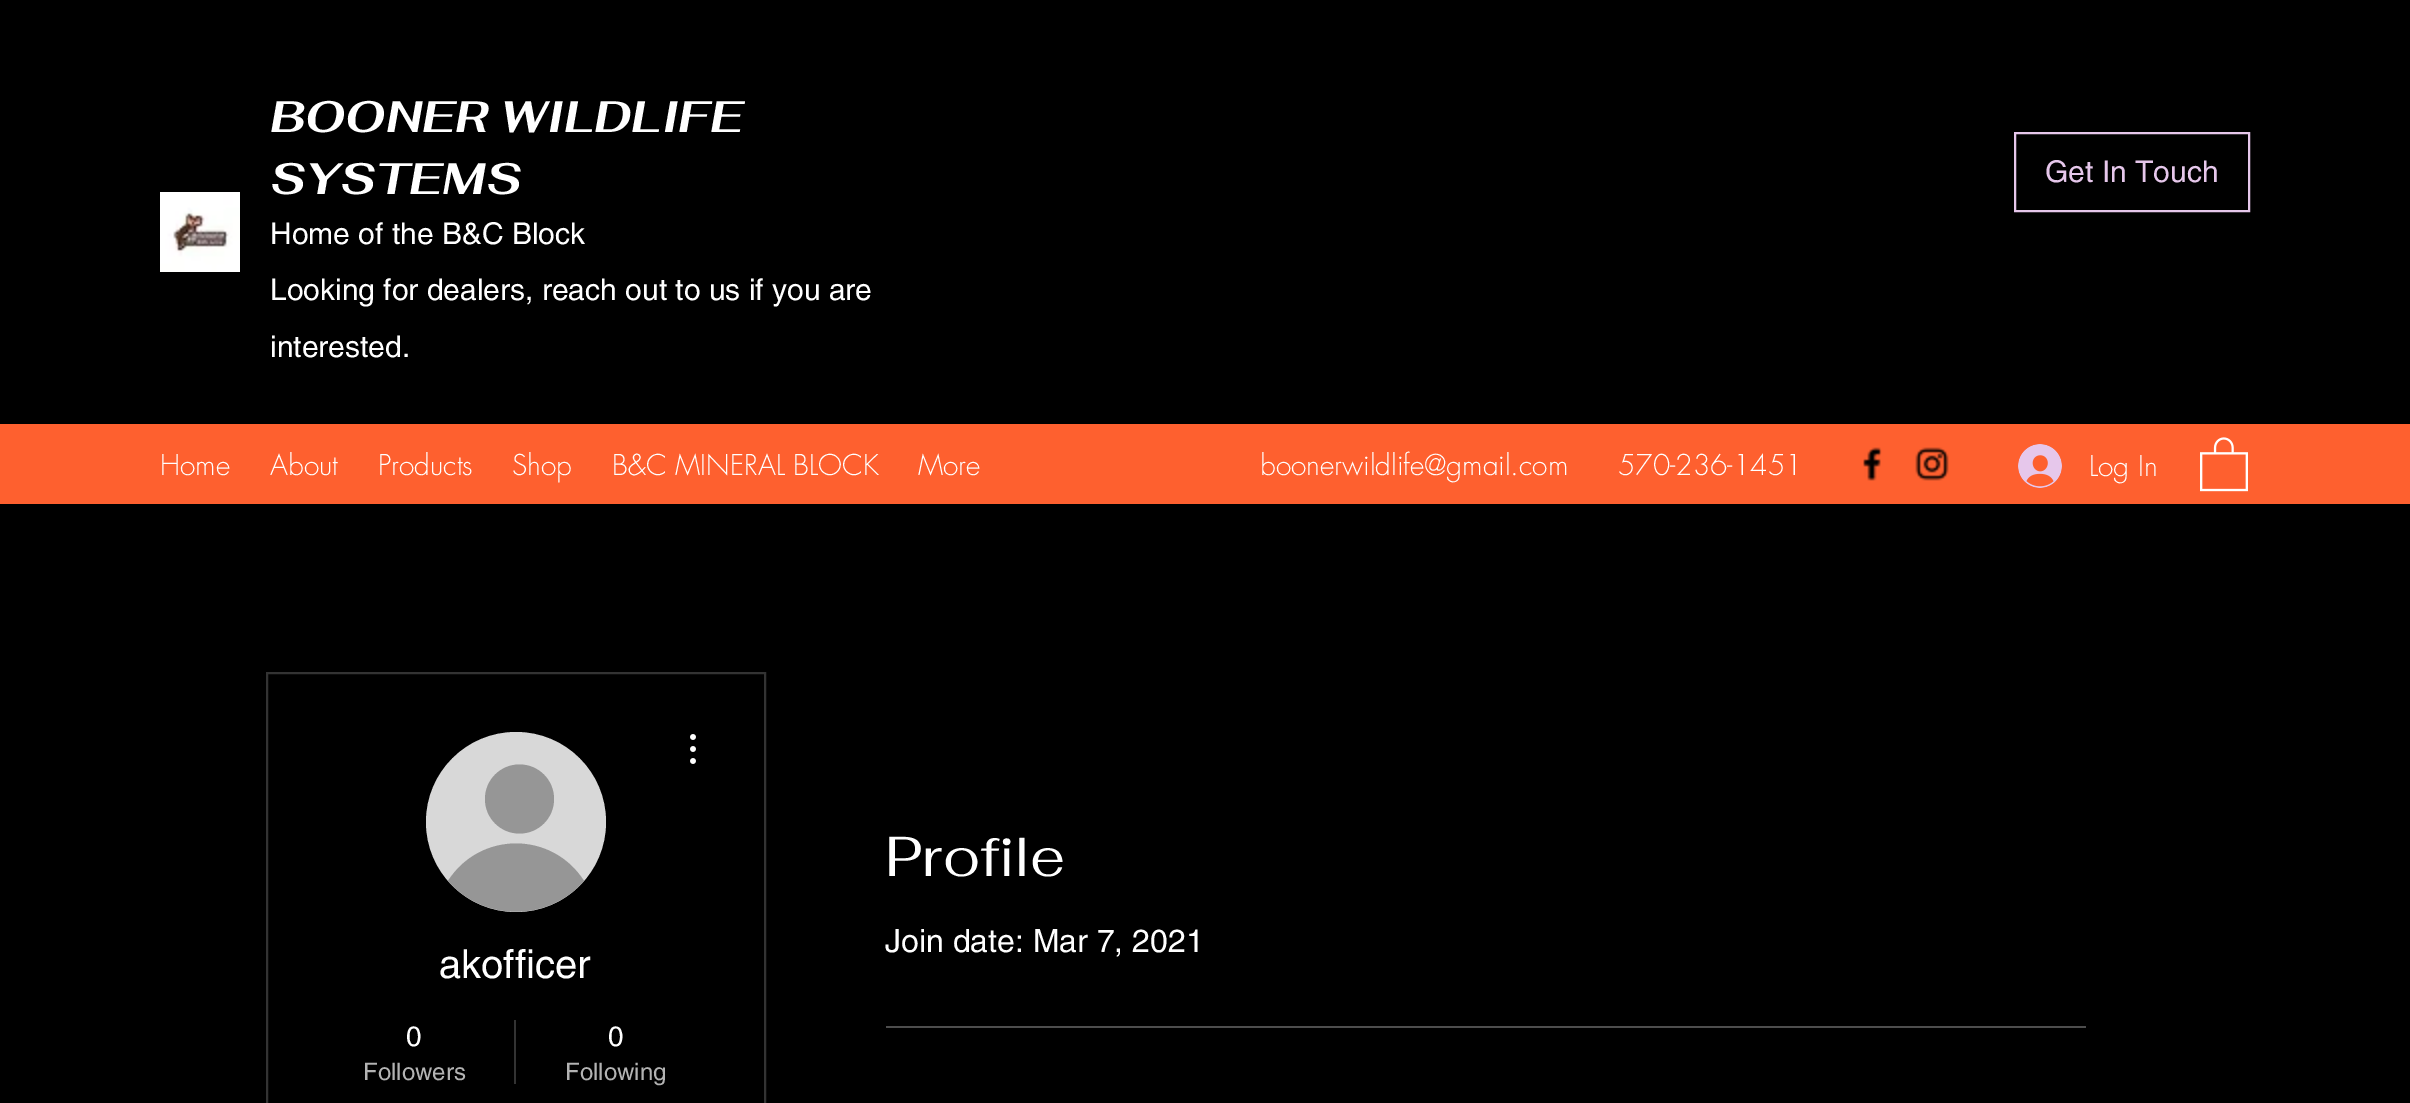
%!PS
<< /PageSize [2410 1103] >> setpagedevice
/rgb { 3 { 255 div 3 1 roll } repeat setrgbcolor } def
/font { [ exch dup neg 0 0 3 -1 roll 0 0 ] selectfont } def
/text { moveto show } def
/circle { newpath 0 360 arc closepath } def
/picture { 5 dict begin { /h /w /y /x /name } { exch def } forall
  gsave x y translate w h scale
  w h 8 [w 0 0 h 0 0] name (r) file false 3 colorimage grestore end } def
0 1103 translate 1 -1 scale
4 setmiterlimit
0 0 0 rgb
0 0 2410 1103 rectfill
(img_01.rgb) 160 192 80 80 picture
230 199 235 rgb
2 setlinewidth
2015 133 234 78 rectstroke
254 96 47 rgb
0 424 2410 80 rectfill
(img_02.rgb) 1863 447 19 34 picture
(img_03.rgb) 1915 447 34 34 picture
(img_04.rgb) 2018 444 44 44 picture
(img_05.rgb) 2200 437 48 55 picture
77 77 77 rgb
886 1026 1200 2 rectfill
51 51 51 rgb
267 673 498 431 rectstroke
216 216 216 rgb
516 822 90 circle fill
150 150 150 rgb
519.5 799 34.5 circle fill
584 881 moveto -36 41 -100 41 -136 0 rcurveto 32 -50 104 -50 136 0 rcurveto closepath fill
(img_06.rgb) 690 734 6 30 picture
51 51 51 rgb
514 1020 2 64 rectfill
/Fahkwang-BoldItalic 44 font
255 255 255 rgb
(BOONER WILDLIFE) 270 132 text
(SYSTEMS) 270 194 text
/helvetica-Regular 30 font
(Home of the B&C Block) 270 244 text
(Looking for dealers, reach out to us if you are) 270 300 text
(interested.) 270 357 text
230 199 235 rgb
(Get In Touch) 2045 182 text
/futura-Light 28 font
255 255 255 rgb
(Home) 160 475 text
(About) 270 475 text
(Products) 378 475 text
(Shop) 512 475 text
(B&C MINERAL BLOCK) 612 475 text
(More) 918 475 text
(boonerwildlife@gmail.com) 1260 475 text
(570-236-1451) 1618 475 text
(Log In) 2089 476 text
/Fahkwang-Regular 56 font
(Profile) 885 876 text
/helvetica-Regular 32 font
(Join date: Mar 7, 2021) 885 952 text
/helvetica-Regular 40 font
(akofficer) 439 978 text
/helvetica-Regular 28 font
(0) 406 1046 text
/helvetica-Regular 24 font
179 179 179 rgb
(Followers) 363 1080 text
/helvetica-Regular 28 font
255 255 255 rgb
(0) 608 1046 text
/helvetica-Regular 24 font
179 179 179 rgb
(Following) 565 1080 text
showpage
